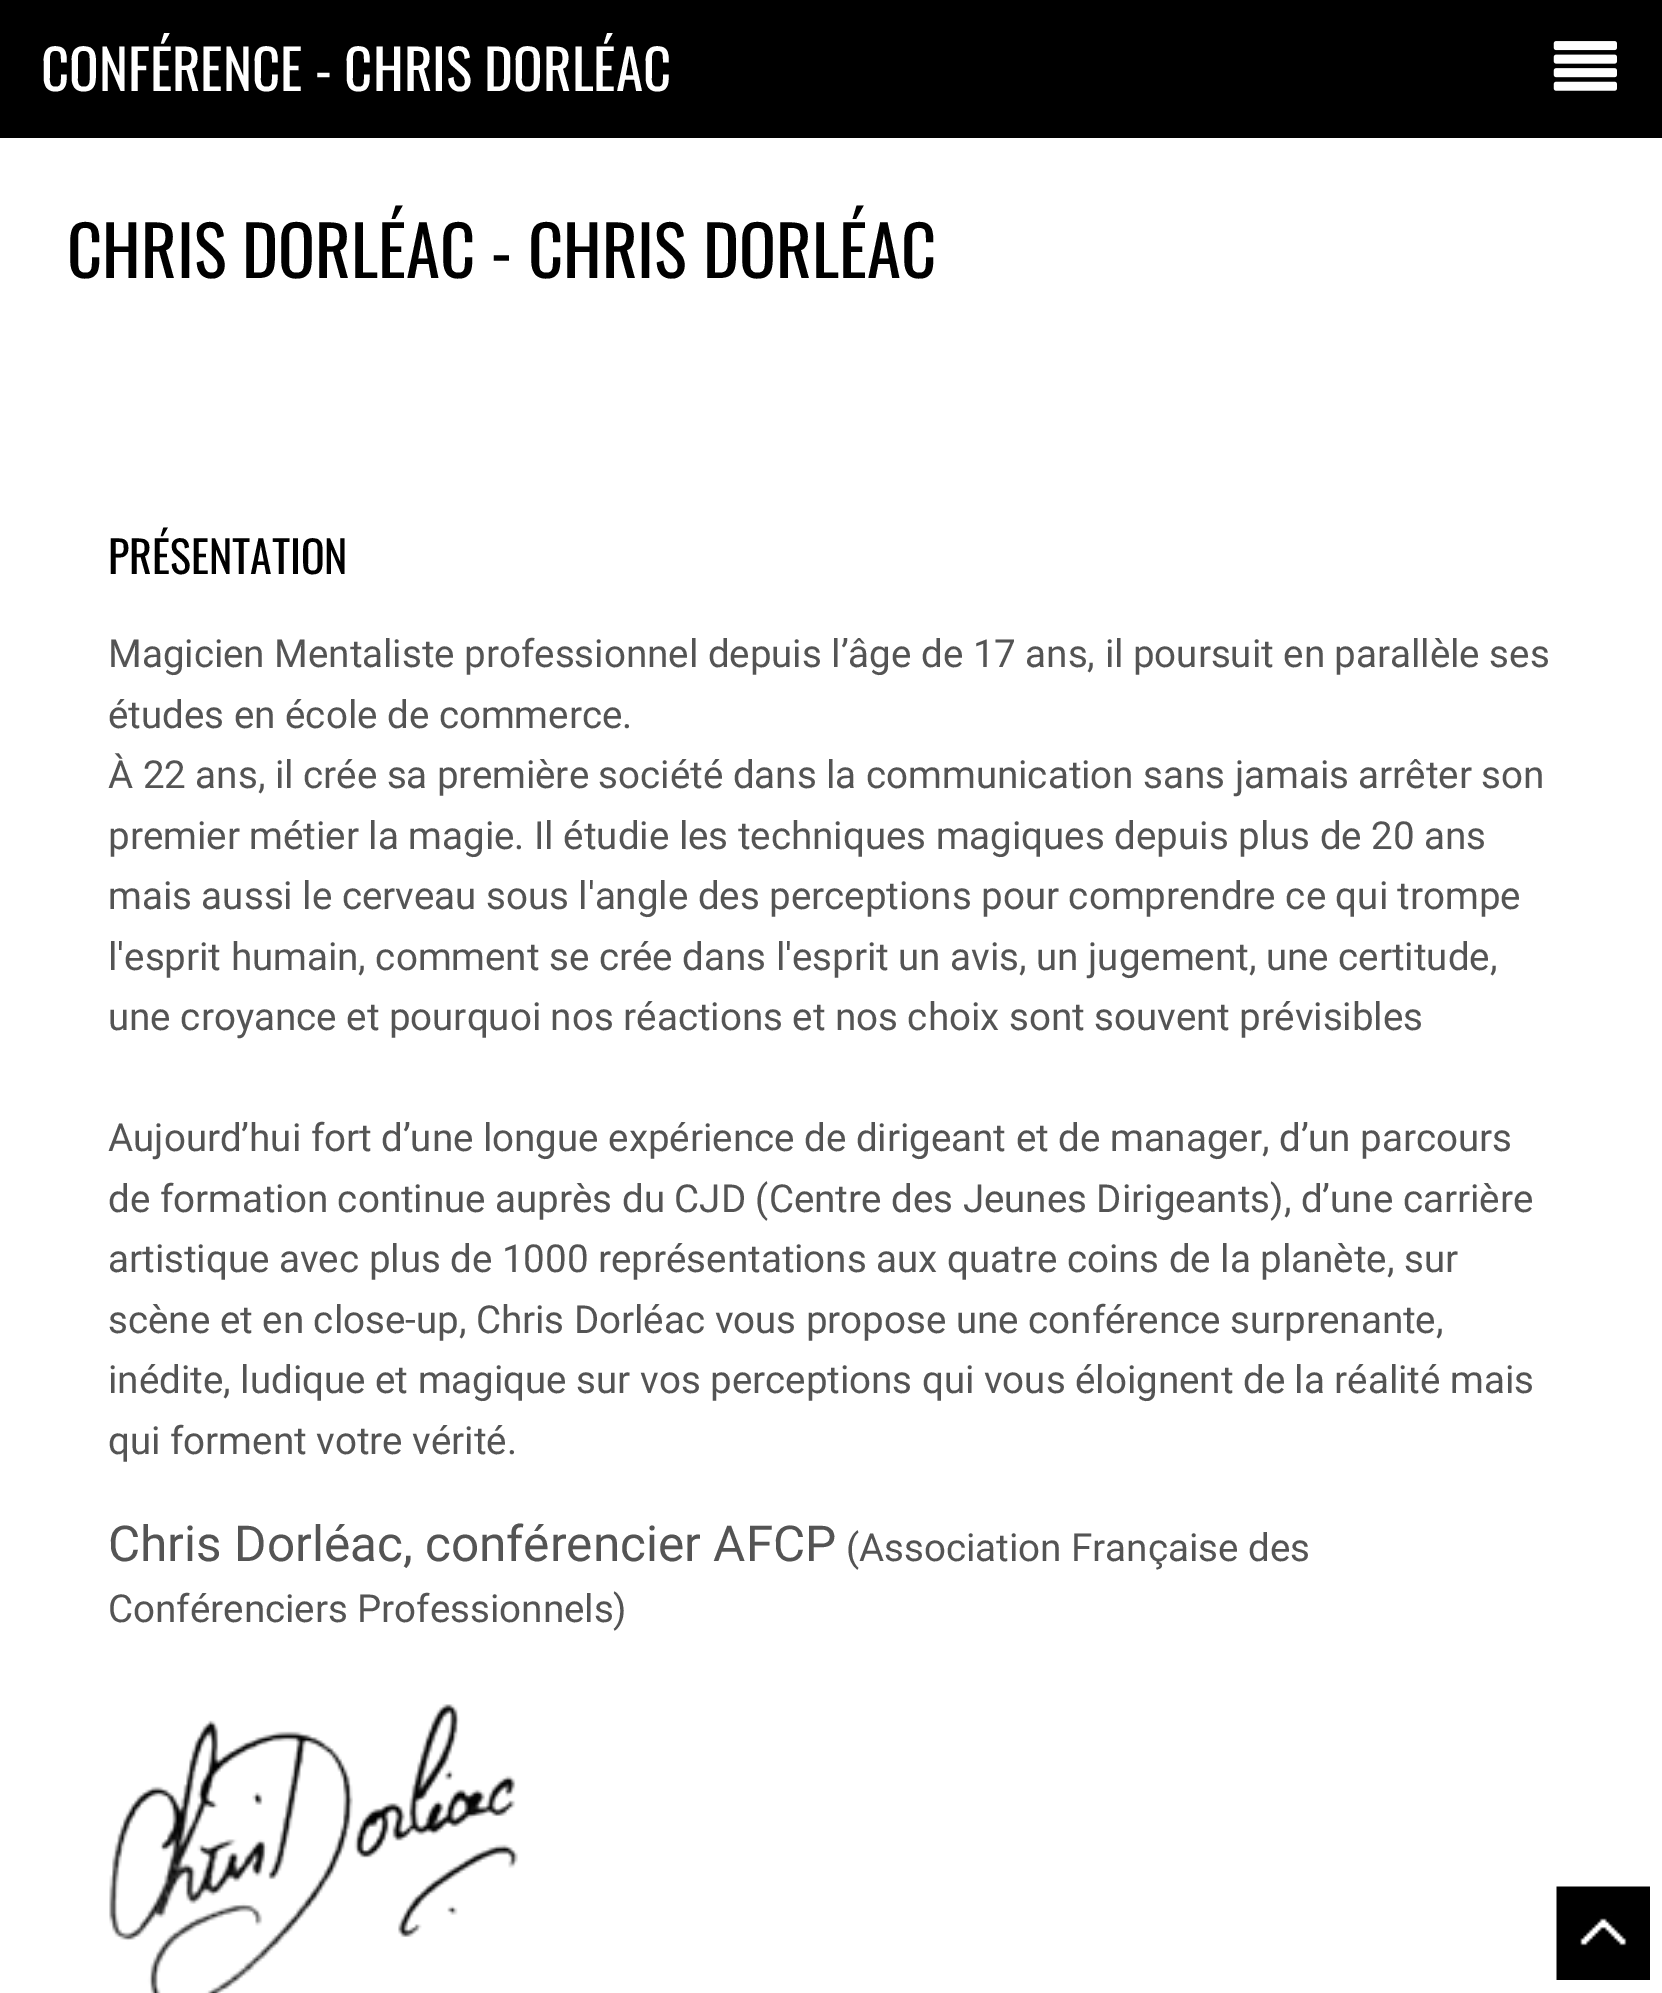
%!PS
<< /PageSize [1662 1993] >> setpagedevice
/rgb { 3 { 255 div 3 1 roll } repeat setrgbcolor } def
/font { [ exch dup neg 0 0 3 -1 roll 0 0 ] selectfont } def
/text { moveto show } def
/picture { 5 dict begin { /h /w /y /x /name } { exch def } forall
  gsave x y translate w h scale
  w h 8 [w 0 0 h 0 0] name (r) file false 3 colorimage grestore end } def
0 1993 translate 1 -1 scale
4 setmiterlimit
255 255 255 rgb
0 0 1662 1993 rectfill
0 0 0 rgb
0 0 1662 138 rectfill
(img_01.rgb) 1553 41 64 50 picture
(img_02.rgb) 109 1704 409 289 picture
(img_03.rgb) 1556 1886 94 94 picture
/Oswald-Regular 55 font
255 255 255 rgb
(CONFÉRENCE - CHRIS DORLÉAC) 41 91 text
/Oswald-Regular 68.75 font
0 0 0 rgb
(CHRIS DORLÉAC - CHRIS DORLÉAC) 67 278 text
/Oswald-Regular 44 font
(PRÉSENTATION) 108 574 text
/Roboto-Regular 38.5 font
84 84 84 rgb
(Magicien Mentaliste professionnel depuis l’âge de 17 ans, il poursuit en parallèle ses) 108 667 text
(études en école de commerce.) 108 728 text
(À 22 ans, il crée sa première société dans la communication sans jamais arrêter son) 108 788 text
(premier métier la magie. Il étudie les techniques magiques depuis plus de 20 ans) 108 849 text
(mais aussi le cerveau sous l'angle des perceptions pour comprendre ce qui trompe) 108 909 text
(l'esprit humain, comment se crée dans l'esprit un avis, un jugement, une certitude,) 108 970 text
(une croyance et pourquoi nos réactions et nos choix sont souvent prévisibles) 108 1030 text
(Aujourd’hui fort d’une longue expérience de dirigeant et de manager, d’un parcours) 108 1151 text
(de formation continue auprès du CJD \(Centre des Jeunes Dirigeants\), d’une carrière) 108 1212 text
(artistique avec plus de 1000 représentations aux quatre coins de la planète, sur) 108 1272 text
(scène et en close-up, Chris Dorléac vous propose une conférence surprenante,) 108 1333 text
(inédite, ludique et magique sur vos perceptions qui vous éloignent de la réalité mais) 108 1393 text
(qui forment votre vérité.) 108 1454 text
/Roboto-Regular 49.5 font
(Chris Dorléac, conférencier AFCP) 108 1561 text
/Roboto-Regular 38.5 font
(\(Association Française des) 846 1561 text
(Conférenciers Professionnels\)) 108 1622 text
showpage
